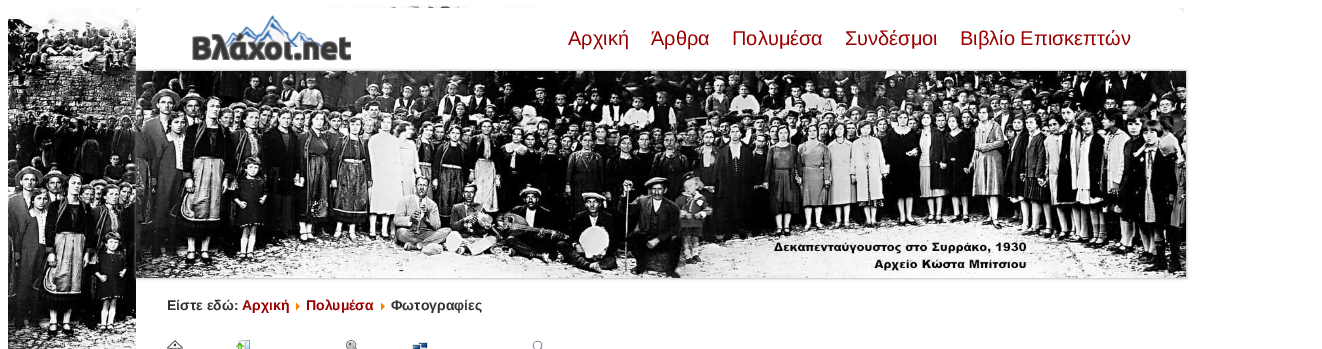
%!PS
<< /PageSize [1322 349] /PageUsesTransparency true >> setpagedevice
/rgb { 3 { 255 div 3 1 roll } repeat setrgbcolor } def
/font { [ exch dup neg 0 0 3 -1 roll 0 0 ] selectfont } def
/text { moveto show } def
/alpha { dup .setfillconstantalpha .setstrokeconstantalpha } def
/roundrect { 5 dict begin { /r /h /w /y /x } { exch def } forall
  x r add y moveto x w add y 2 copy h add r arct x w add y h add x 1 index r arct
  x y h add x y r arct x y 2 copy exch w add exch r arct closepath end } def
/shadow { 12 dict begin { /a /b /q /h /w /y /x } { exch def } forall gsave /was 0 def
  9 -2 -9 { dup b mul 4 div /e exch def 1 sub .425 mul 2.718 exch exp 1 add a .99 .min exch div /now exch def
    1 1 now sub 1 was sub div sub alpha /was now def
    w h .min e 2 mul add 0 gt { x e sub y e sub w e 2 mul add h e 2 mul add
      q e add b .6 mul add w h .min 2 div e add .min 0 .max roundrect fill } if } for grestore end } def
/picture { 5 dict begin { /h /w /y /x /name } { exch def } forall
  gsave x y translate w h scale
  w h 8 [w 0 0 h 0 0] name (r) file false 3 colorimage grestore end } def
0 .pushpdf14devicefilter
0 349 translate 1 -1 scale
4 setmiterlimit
255 255 255 rgb
0 0 1322 349 rectfill
(img_01.rgb) 8 5 1007 344 picture
136 8 9 3 rectfill
(img_02.rgb) 136 8 6 7 picture
145 8 598 7 rectfill
(img_03.rgb) 1178 8 6 7 picture
136 15 879 334 rectfill
(img_04.rgb) 192 15 159 46 picture
148 147 147 rgb
136 71 1050 207 0 1.5 1 shadow
(img_05.rgb) 136 71 1050 207 picture
(img_06.rgb) 296 303 4 7 picture
(img_06.rgb) 381 303 4 7 picture
(img_07.rgb) 167 340 16 9 picture
(img_08.rgb) 236 340 14 9 picture
(img_09.rgb) 346 340 11 9 picture
(img_10.rgb) 412 342 16 7 picture
(img_11.rgb) 532 340 11 9 picture
/LiberationSans-Regular 20 font
153 0 0 rgb
(Αρχική) 568 45 text
(Άρθρα) 651 45 text
(Πολυμέσα) 732 45 text
(Συνδέσμοι) 845 45 text
(Βιβλίο Επισκεπτών) 960 45 text
/LiberationSans-Bold 14 font
51 51 51 rgb
(Είστε εδώ:) 167 310 text
153 0 0 rgb
(Αρχική) 242 310 text
(Πολυμέσα) 306 310 text
51 51 51 rgb
(Φωτογραφίες) 391 310 text
.poppdf14devicefilter showpage
